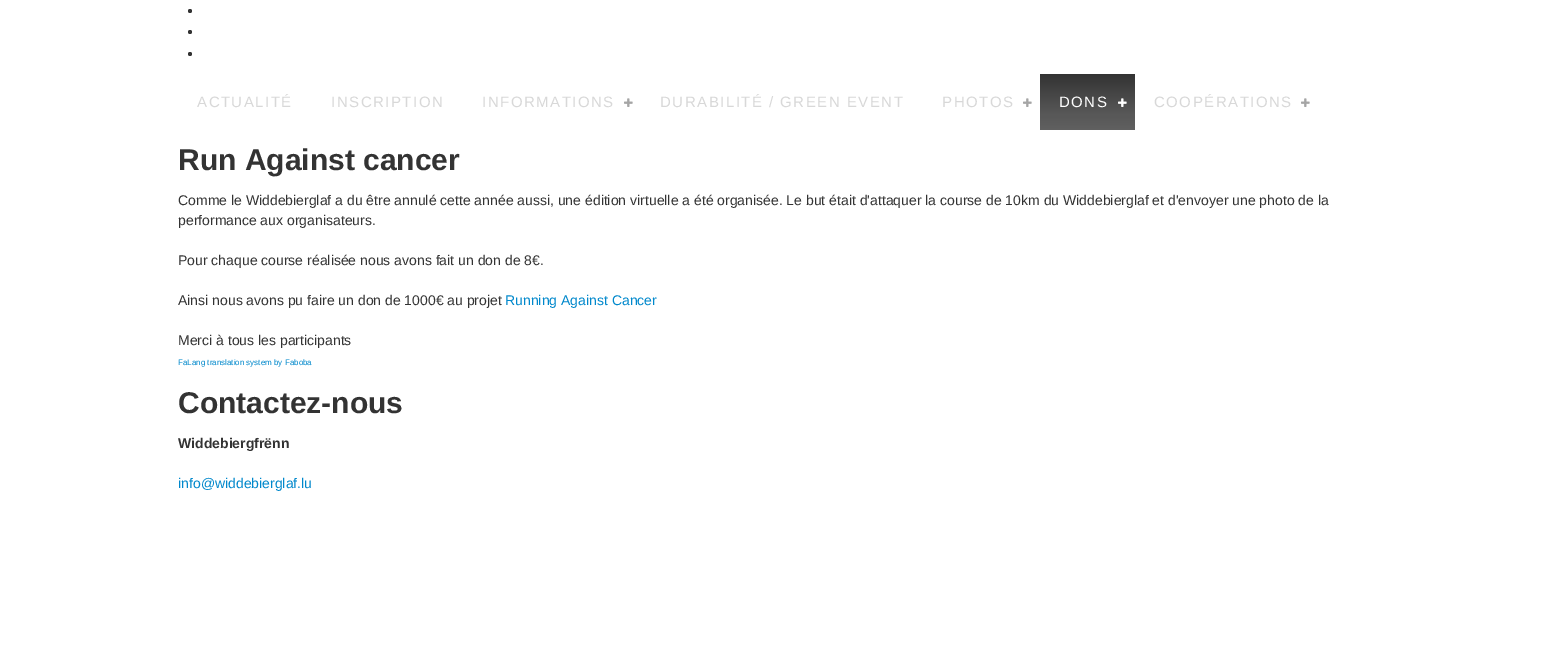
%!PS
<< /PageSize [1555 648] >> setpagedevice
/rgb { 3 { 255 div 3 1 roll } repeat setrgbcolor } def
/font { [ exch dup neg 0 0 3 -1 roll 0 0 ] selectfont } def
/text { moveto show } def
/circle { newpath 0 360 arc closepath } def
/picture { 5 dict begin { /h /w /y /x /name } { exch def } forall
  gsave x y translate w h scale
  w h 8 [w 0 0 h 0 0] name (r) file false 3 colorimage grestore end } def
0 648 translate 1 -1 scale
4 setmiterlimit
255 255 255 rgb
0 0 1555 648 rectfill
51 51 51 rgb
190 11 2 circle fill
190 32 2 circle fill
190 54 2 circle fill
(img_01.rgb) 624 98 9 9 picture
(img_01.rgb) 1023 98 9 9 picture
gsave 1040 74 moveto 95 0 rlineto 0 56 rlineto -95 0 rlineto closepath clip newpath
<< /ShadingType 2 /ColorSpace /DeviceRGB /Coords [1088 74 1088 130] /Extend [true true] /Function << /FunctionType 3 /Domain [0 1] /Functions [<< /FunctionType 2 /Domain [0 1] /C0 [0.2 0.2 0.2] /C1 [0.341 0.341 0.341] /N 1 >> << /FunctionType 2 /Domain [0 1] /C0 [0.341 0.341 0.341] /C1 [0.376 0.376 0.376] /N 1 >>] /Bounds [0.7] /Encode [0 1 0 1] >> >> shfill grestore
(img_02.rgb) 1118 98 9 9 picture
(img_01.rgb) 1301 98 9 9 picture
/LiberationSans-Regular 15 font
216 216 216 rgb
197 107 moveto 1.5 0 (ACTUALITÉ) ashow
331 107 moveto 1.5 0 (INSCRIPTION) ashow
482 107 moveto 1.5 0 (INFORMATIONS) ashow
660 107 moveto 1.5 0 (DURABILITÉ / GREEN EVENT) ashow
942 107 moveto 1.5 0 (PHOTOS) ashow
255 255 255 rgb
1059 107 moveto 1.5 0 (DONS) ashow
216 216 216 rgb
1154 107 moveto 1.5 0 (COOPÉRATIONS) ashow
/LiberationSans-Bold 30 font
51 51 51 rgb
(Run Against cancer) 178 170 text
/LiberationSans-Regular 14 font
(Comme le Widdebierglaf a du être annulé cette année aussi, une édition virtuelle a été organisée. Le but était d'attaquer la course de 10km du Widdebierglaf et d'envoyer une photo de la) 178 205 text
(performance aux organisateurs.) 178 225 text
(Pour chaque course réalisée nous avons fait un don de 8€.) 178 265 text
(Ainsi nous avons pu faire un don de 1000€ au projet) 178 305 text
0 136 204 rgb
(Running Against Cancer) 505 305 text
51 51 51 rgb
(Merci à tous les participants) 178 345 text
/LiberationSans-Regular 8 font
0 136 204 rgb
(FaLang translation system by Faboba) 178 365 text
/LiberationSans-Bold 30 font
51 51 51 rgb
(Contactez-nous) 178 413 text
/LiberationSans-Bold 14 font
(Widdebiergfrënn) 178 448 text
/LiberationSans-Regular 14 font
0 136 204 rgb
(info@widdebierglaf.lu) 178 488 text
showpage
